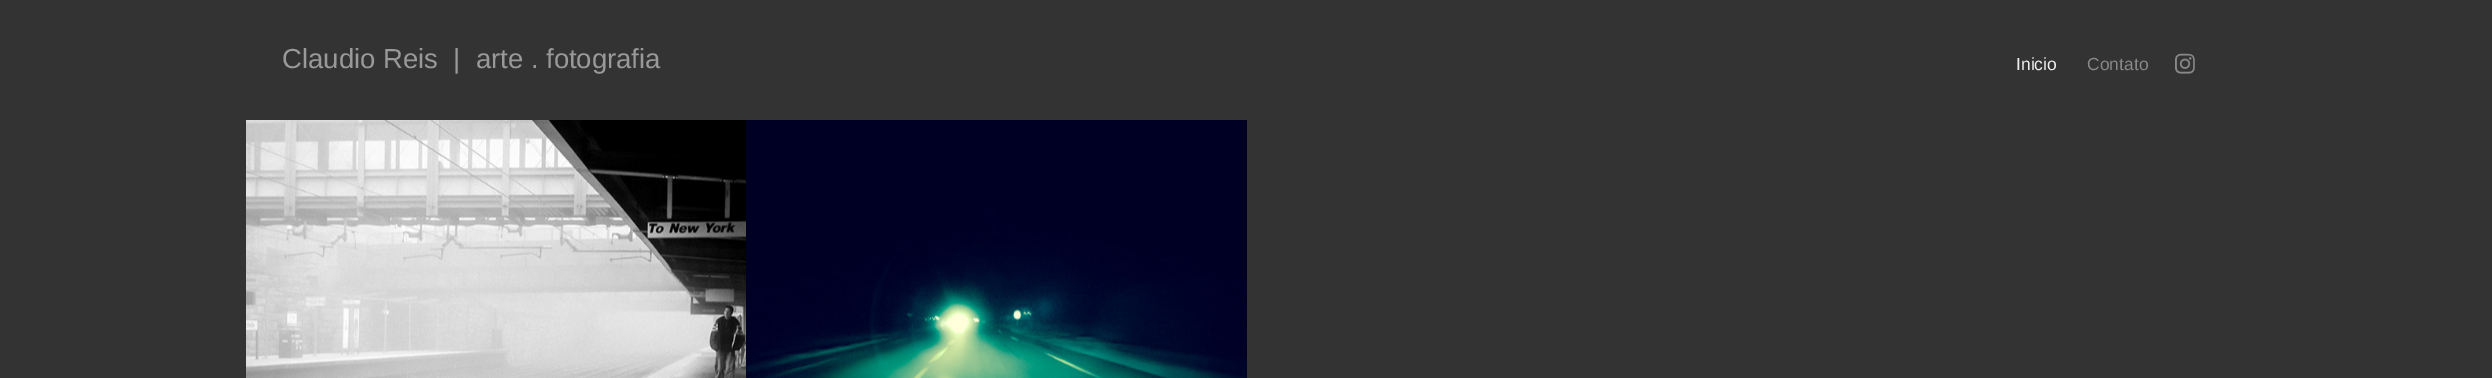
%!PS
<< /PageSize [2492 378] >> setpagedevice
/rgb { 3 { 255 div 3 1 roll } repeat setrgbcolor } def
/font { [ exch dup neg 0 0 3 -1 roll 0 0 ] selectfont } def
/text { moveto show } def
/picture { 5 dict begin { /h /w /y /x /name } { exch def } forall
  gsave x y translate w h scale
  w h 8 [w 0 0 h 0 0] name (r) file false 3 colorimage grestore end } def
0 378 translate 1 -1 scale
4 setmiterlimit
51 51 51 rgb
0 0 2492 378 rectfill
(img_01.rgb) 2175 53 20 21 picture
(img_02.rgb) 246 120 500 258 picture
(img_03.rgb) 746 120 501 258 picture
/LiberationSans-Regular 27.5 font
153 153 153 rgb
(Claudio Reis  |  arte . fotografia) 282 68 text
/LiberationSans-Regular 17.5 font
238 238 238 rgb
(Inicio) 2016 70 text
136 136 136 rgb
(Contato) 2087 70 text
showpage
